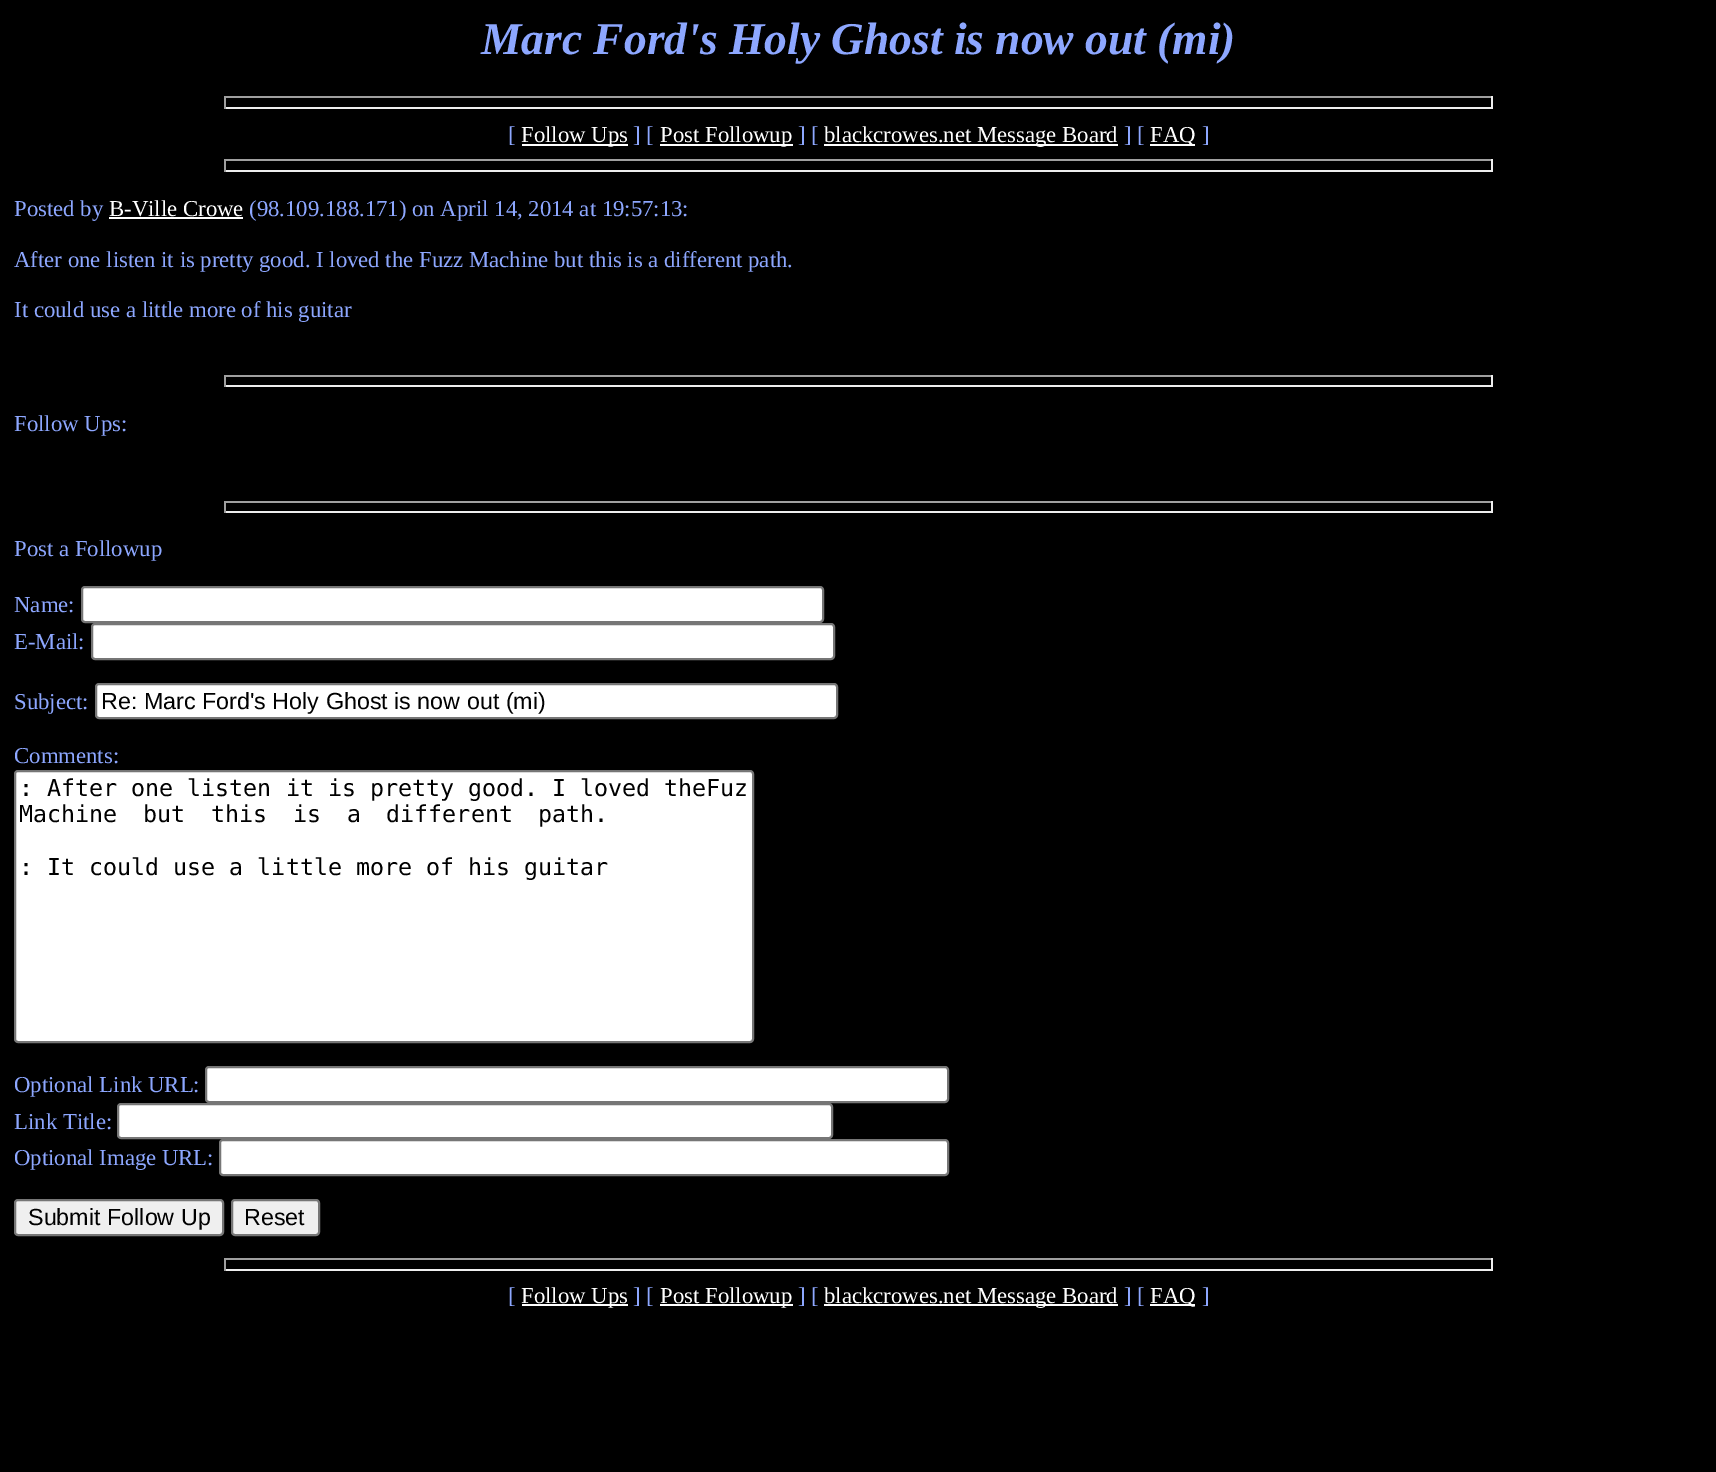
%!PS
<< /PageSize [1716 1472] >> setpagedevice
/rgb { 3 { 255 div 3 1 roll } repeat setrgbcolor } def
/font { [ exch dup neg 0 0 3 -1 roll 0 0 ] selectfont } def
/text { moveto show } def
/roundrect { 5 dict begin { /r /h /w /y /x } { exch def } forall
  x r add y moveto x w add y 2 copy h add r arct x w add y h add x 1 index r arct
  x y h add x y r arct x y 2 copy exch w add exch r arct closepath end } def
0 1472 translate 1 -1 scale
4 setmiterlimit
0 0 0 rgb
0 0 1716 1472 rectfill
159 159 159 rgb
224 96 1269 2 rectfill
238 238 238 rgb
1491 96 2 13 rectfill
224 107 1269 2 rectfill
159 159 159 rgb
224 96 2 13 rectfill
255 255 255 rgb
522 144 106 2 rectfill
660 144 133 2 rectfill
824 144 294 2 rectfill
1150 144 45 2 rectfill
159 159 159 rgb
224 159 1269 2 rectfill
238 238 238 rgb
1491 159 2 13 rectfill
224 170 1269 2 rectfill
159 159 159 rgb
224 159 2 13 rectfill
255 255 255 rgb
109 217 134 2 rectfill
159 159 159 rgb
224 375 1269 2 rectfill
238 238 238 rgb
1491 375 2 12 rectfill
224 385 1269 2 rectfill
159 159 159 rgb
224 375 2 12 rectfill
224 501 1269 2 rectfill
238 238 238 rgb
1491 501 2 12 rectfill
224 511 1269 2 rectfill
159 159 159 rgb
224 501 2 12 rectfill
255 255 255 rgb
82 587 741 35 3 roundrect gsave fill grestore
118 118 118 rgb
2 setlinewidth
stroke
255 255 255 rgb
92 624 742 35 3 roundrect gsave fill grestore
118 118 118 rgb
stroke
255 255 255 rgb
96 684 741 34 3 roundrect gsave fill grestore
118 118 118 rgb
stroke
255 255 255 rgb
15 771 738 271 3 roundrect gsave fill grestore
118 118 118 rgb
stroke
255 255 255 rgb
206 1067 742 35 3 roundrect gsave fill grestore
118 118 118 rgb
stroke
255 255 255 rgb
118 1104 714 34 3 roundrect gsave fill grestore
118 118 118 rgb
stroke
255 255 255 rgb
220 1140 728 35 3 roundrect gsave fill grestore
118 118 118 rgb
stroke
239 239 239 rgb
15 1200 208 35 3 roundrect gsave fill grestore
118 118 118 rgb
stroke
239 239 239 rgb
232 1200 87 35 3 roundrect gsave fill grestore
118 118 118 rgb
stroke
159 159 159 rgb
224 1258 1269 2 rectfill
238 238 238 rgb
1491 1258 2 13 rectfill
224 1269 1269 2 rectfill
159 159 159 rgb
224 1258 2 13 rectfill
255 255 255 rgb
522 1304 106 2 rectfill
660 1304 133 2 rectfill
824 1304 294 2 rectfill
1150 1304 45 2 rectfill
/LiberationSerif-BoldItalic 45.5 font
141 167 255 rgb
(Marc Ford's Holy Ghost is now out \(mi\)) 481 54 text
/LiberationSerif-Regular 22.75 font
([) 508 142 text
255 255 255 rgb
(Follow Ups) 521 142 text
141 167 255 rgb
(] [) 633 142 text
255 255 255 rgb
(Post Followup) 660 142 text
141 167 255 rgb
(] [) 798 142 text
255 255 255 rgb
(blackcrowes.net Message Board) 824 142 text
141 167 255 rgb
(] [) 1124 142 text
255 255 255 rgb
(FAQ) 1150 142 text
141 167 255 rgb
(]) 1202 142 text
(Posted by) 14 216 text
255 255 255 rgb
(B-Ville Crowe) 109 216 text
141 167 255 rgb
(\(98.109.188.171\) on April 14, 2014 at 19:57:13:) 249 216 text
(After one listen it is pretty good. I loved the Fuzz Machine but this is a different path.) 14 267 text
(It could use a little more of his guitar) 14 317 text
(Follow Ups:) 14 431 text
(Post a Followup) 14 556 text
(Name:) 14 612 text
(E-Mail:) 14 649 text
(Subject:) 14 709 text
/LiberationSans-Regular 23.3 font
0 0 0 rgb
(Re: Marc Ford's Holy Ghost is now out \(mi\)) 101 709 text
/LiberationSerif-Regular 22.75 font
141 167 255 rgb
(Comments:) 14 763 text
/DejaVuSansMono-Regular 23.3 font
0 0 0 rgb
(: After one listen it is pretty good. I loved theFuz) 19 796 text
19 822 moveto 11.75 0 32 (Machine but this is a different path.) widthshow
(: It could use a little more of his guitar) 19 875 text
/LiberationSerif-Regular 22.75 font
141 167 255 rgb
(Optional Link URL:) 14 1092 text
(Link Title:) 14 1129 text
(Optional Image URL:) 14 1165 text
/LiberationSans-Regular 23.3 font
0 0 0 rgb
(Submit Follow Up) 28 1225 text
(Reset) 244 1225 text
/LiberationSerif-Regular 22.75 font
141 167 255 rgb
([) 508 1303 text
255 255 255 rgb
(Follow Ups) 521 1303 text
141 167 255 rgb
(] [) 633 1303 text
255 255 255 rgb
(Post Followup) 660 1303 text
141 167 255 rgb
(] [) 798 1303 text
255 255 255 rgb
(blackcrowes.net Message Board) 824 1303 text
141 167 255 rgb
(] [) 1124 1303 text
255 255 255 rgb
(FAQ) 1150 1303 text
141 167 255 rgb
(]) 1202 1303 text
showpage
